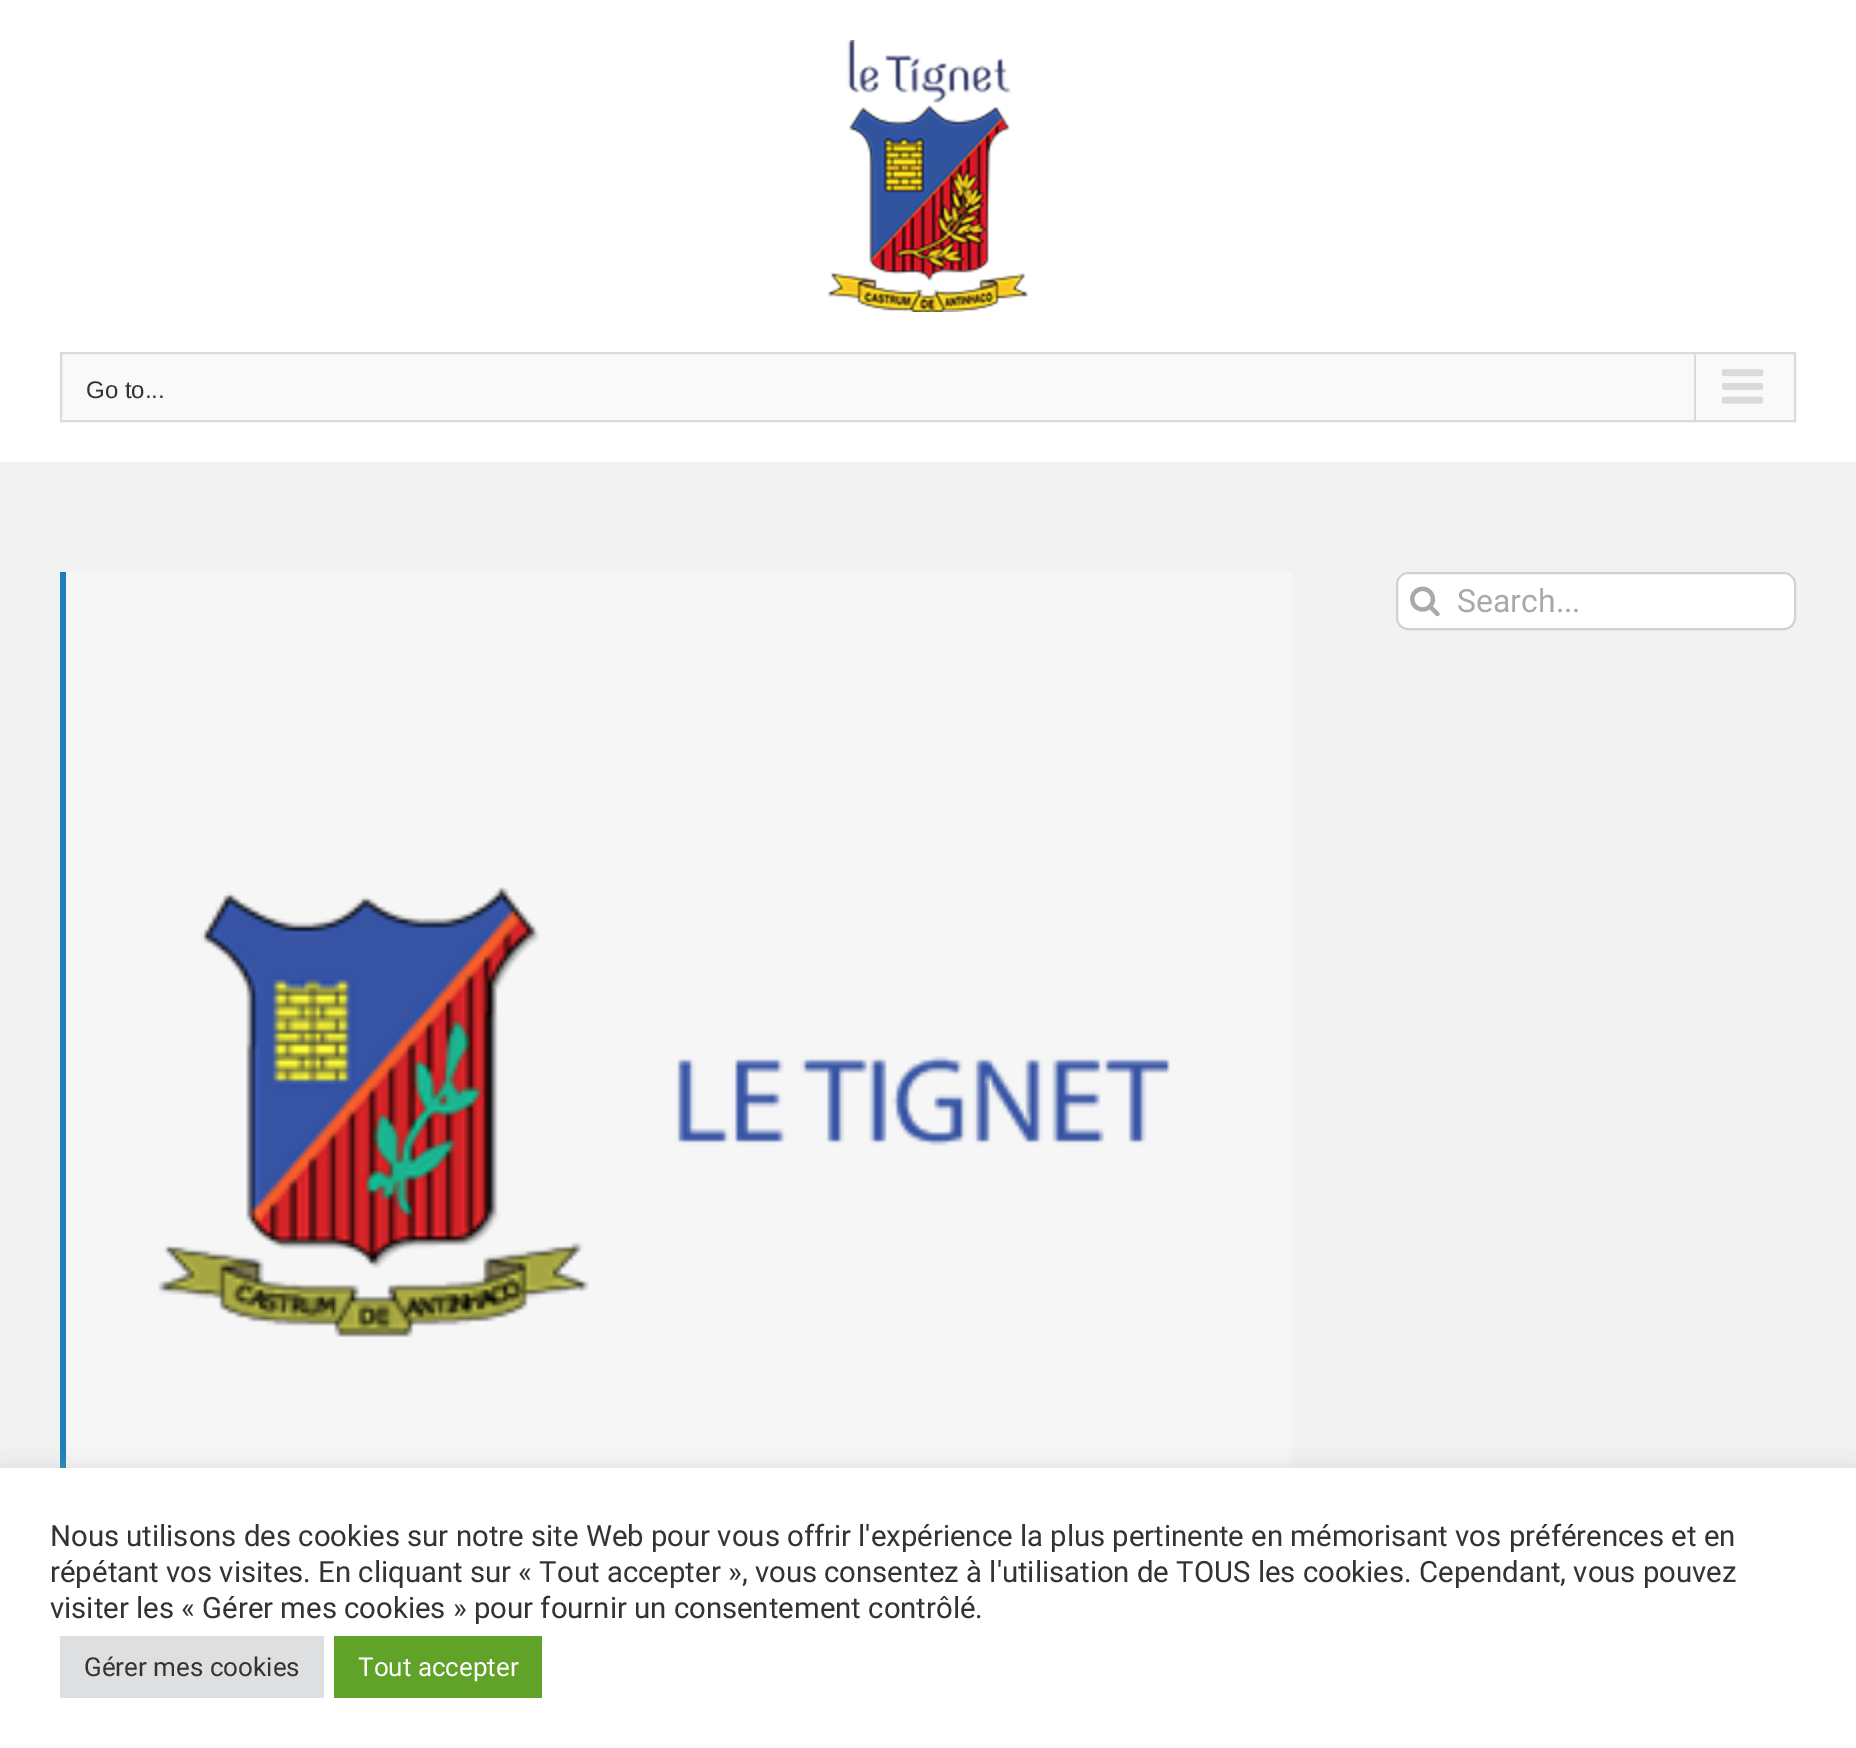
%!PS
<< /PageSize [1856 1748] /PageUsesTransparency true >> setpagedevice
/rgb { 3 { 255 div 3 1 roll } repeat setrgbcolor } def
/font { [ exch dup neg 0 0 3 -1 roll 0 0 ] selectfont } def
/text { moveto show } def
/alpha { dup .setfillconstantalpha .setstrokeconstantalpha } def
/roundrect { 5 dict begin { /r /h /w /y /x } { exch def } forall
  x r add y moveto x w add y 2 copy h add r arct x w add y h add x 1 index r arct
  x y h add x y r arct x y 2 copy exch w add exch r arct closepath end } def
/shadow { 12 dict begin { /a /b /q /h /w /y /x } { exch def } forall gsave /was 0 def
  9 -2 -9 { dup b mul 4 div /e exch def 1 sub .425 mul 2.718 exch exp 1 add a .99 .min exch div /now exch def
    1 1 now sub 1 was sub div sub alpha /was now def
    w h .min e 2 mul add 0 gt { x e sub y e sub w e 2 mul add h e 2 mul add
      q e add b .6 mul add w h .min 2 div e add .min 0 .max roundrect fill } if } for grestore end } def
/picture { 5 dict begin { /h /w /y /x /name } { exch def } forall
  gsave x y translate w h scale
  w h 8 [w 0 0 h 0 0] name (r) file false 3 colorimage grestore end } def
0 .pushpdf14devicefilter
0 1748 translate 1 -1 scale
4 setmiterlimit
242 242 242 rgb
0 0 1856 1748 rectfill
255 255 255 rgb
0 0 1856 462 rectfill
(img_01.rgb) 828 40 200 272 picture
249 249 249 rgb
61 353 moveto 1734 0 rlineto 0 68 rlineto -1734 0 rlineto closepath gsave fill grestore
218 218 218 rgb
2 setlinewidth
stroke
1694 354 2 66 rectfill
(img_02.rgb) 1722 369 42 35 picture
246 246 246 rgb
66 572 1226 896 rectfill
26 128 182 rgb
60 572 6 896 rectfill
(img_03.rgb) 158 887 1012 450 picture
255 255 255 rgb
1397 573 398 56 11 roundrect gsave fill grestore
210 210 210 rgb
stroke
(img_04.rgb) 1410 586 30 31 picture
172 171 171 rgb
0 1466 1856 280 0 10 0.3 shadow
255 255 255 rgb
0 1468 1856 280 rectfill
222 223 224 rgb
60 1636 264 62 rectfill
97 162 41 rgb
334 1636 208 62 rectfill
/LiberationSans-Regular 24 font
51 51 51 rgb
(Go to...) 86 398 text
/Roboto-Regular 32 font
170 169 169 rgb
(Search...) 1457 612 text
/Roboto-Regular 29.33 font
51 51 51 rgb
(Nous utilisons des cookies sur notre site Web pour vous offrir l'expérience la plus pertinente en mémorisant vos préférences et en) 50 1546 text
(répétant vos visites. En cliquant sur « Tout accepter », vous consentez à l'utilisation de TOUS les cookies. Cependant, vous pouvez) 50 1582 text
(visiter les « Gérer mes cookies » pour fournir un consentement contrôlé.) 50 1618 text
/Roboto-Regular 26 font
(Gérer mes cookies) 84 1676 text
255 255 255 rgb
(Tout accepter) 358 1676 text
.poppdf14devicefilter showpage
